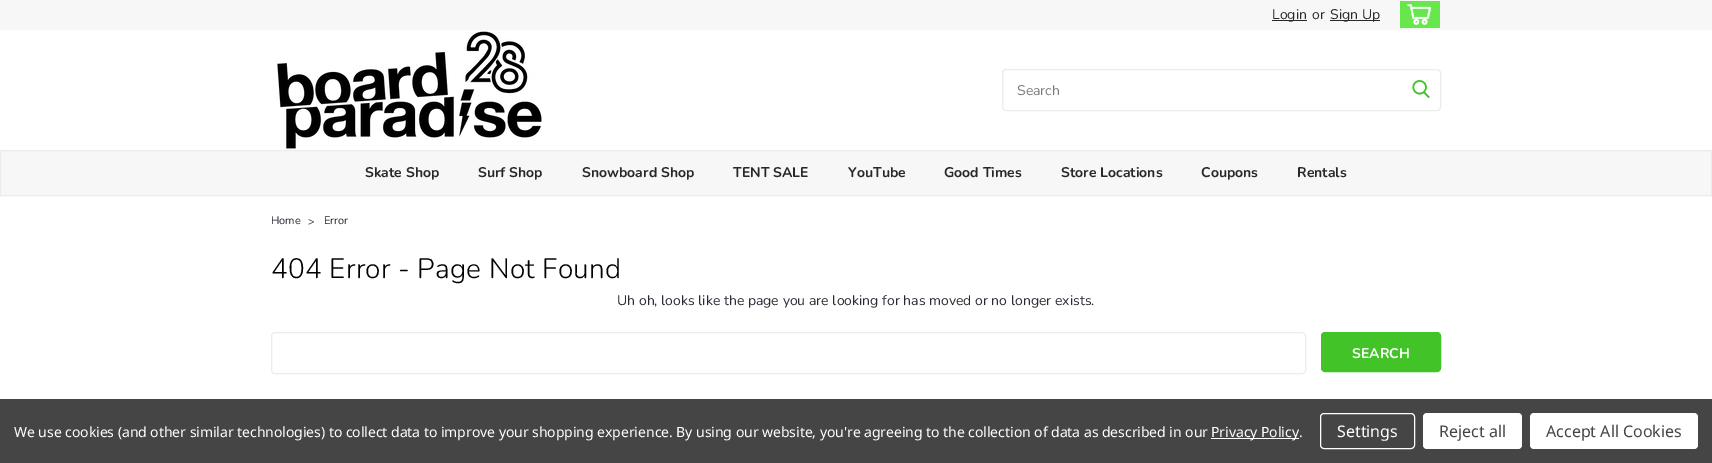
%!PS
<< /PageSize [1712 463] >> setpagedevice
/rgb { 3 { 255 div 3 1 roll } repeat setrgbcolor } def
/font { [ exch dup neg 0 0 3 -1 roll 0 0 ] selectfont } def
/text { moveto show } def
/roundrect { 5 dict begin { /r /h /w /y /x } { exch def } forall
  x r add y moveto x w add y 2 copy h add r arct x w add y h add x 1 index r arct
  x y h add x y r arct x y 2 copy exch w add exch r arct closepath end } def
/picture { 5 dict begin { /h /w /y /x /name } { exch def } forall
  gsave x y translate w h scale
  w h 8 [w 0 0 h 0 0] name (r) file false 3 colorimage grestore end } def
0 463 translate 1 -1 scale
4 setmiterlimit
255 255 255 rgb
0 0 1712 463 rectfill
247 247 247 rgb
0 0 1712 30 rectfill
40 40 40 rgb
1272 20 35 1 rectfill
1330 20 50 1 rectfill
102 232 77 rgb
1400 1 40 27 rectfill
(img_01.rgb) 1407 4 25 21 picture
(img_02.rgb) 277 31 265 118 picture
236 236 236 rgb
1002.5 69.5 438 41 3.5 roundrect stroke
(img_03.rgb) 1412 80 18 18 picture
247 247 247 rgb
0.5 150.5 moveto 1711 0 rlineto 0 45 rlineto -1711 0 rlineto closepath gsave fill grestore
236 236 236 rgb
stroke
271.5 332.5 1034 41 3.5 roundrect stroke
66 196 41 rgb
1321.5 332.5 119 39 3.5 roundrect gsave fill grestore
stroke
69 69 69 rgb
0 399 1712 64 rectfill
255 255 255 rgb
1211 438 88 1 rectfill
1320.5 413.5 94 35 3.5 roundrect stroke
1423 413 99 36 4 roundrect fill
1530 413 168 36 4 roundrect fill
/Nunito-Regular 14 font
40 40 40 rgb
(Login) 1272 19 text
(or) 1312 19 text
(Sign Up) 1330 19 text
123 123 123 rgb
(Search) 1017 95 text
/Nunito-Bold 14 font
40 40 40 rgb
(Skate Shop) 365 177 text
(Surf Shop) 478 177 text
(Snowboard Shop) 582 177 text
(TENT SALE) 733 177 text
(YouTube) 848 177 text
(Good Times) 944 177 text
(Store Locations) 1061 177 text
(Coupons) 1201 177 text
(Rentals) 1297 177 text
/Nunito-Regular 11 font
43 41 53 rgb
(Home) 271 224 text
(>) 308 225 text
(Error) 324 224 text
/Nunito-Light 28 font
0 0 0 rgb
271 278 moveto 0.25 0 (404 Error - Page Not Found) ashow
/Nunito-Regular 14 font
43 41 53 rgb
(Uh oh, looks like the page you are looking for has moved or no longer exists.) 617 305 text
/Nunito-Bold 14 font
255 255 255 rgb
(SEARCH) 1352 358 text
/NotoSans-Regular 14 font
14 437 moveto -0.05 0 (We use cookies \(and other similar technologies\) to collect data to improve your shopping experience. By using our website, you're agreeing to the collection of data as described in our) ashow
1211 437 moveto -0.05 0 (Privacy Policy.) ashow
/NotoSans-Regular 16 font
(Settings) 1337 437 text
69 69 69 rgb
(Reject all) 1439 437 text
(Accept All Cookies) 1546 437 text
showpage
